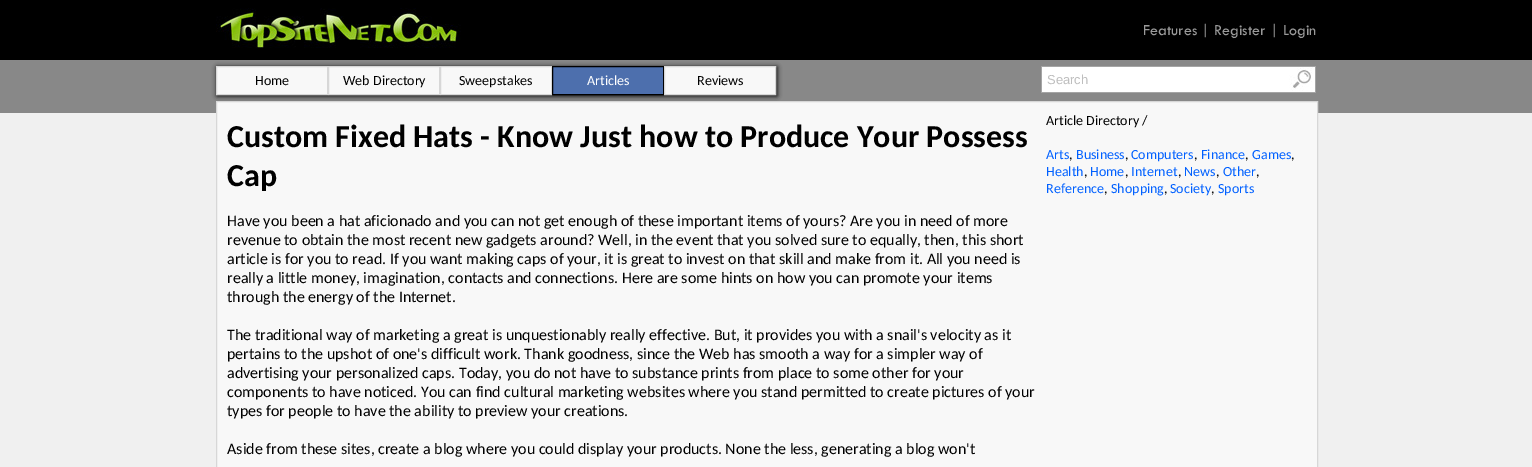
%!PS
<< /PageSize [1532 467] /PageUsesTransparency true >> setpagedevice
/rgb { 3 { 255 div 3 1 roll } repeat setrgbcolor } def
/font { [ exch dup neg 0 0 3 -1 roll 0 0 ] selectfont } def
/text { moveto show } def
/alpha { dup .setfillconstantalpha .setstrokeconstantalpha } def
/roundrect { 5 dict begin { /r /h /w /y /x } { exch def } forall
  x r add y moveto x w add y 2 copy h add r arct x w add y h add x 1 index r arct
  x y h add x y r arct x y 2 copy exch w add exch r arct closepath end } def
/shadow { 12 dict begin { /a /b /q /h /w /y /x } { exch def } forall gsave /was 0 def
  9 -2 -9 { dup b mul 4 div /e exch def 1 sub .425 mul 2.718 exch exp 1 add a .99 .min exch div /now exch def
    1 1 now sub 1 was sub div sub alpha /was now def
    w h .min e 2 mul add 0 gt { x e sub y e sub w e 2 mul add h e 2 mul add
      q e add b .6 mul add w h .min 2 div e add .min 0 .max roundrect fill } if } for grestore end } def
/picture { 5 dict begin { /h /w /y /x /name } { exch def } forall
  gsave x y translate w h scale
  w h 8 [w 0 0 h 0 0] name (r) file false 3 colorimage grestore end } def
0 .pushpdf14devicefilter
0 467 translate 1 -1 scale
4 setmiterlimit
240 240 240 rgb
0 0 1532 467 rectfill
0 0 0 rgb
0 0 1532 60 rectfill
(img_01.rgb) 216 8 245 40 picture
136 136 136 rgb
0 60 1532 53 rectfill
0 0 0 rgb
217 67 560 29 0 2.5 1 shadow
248 248 248 rgb
216.5 66.5 moveto 111 0 rlineto 0 28 rlineto -111 0 rlineto closepath gsave fill grestore
215 215 215 rgb
stroke
248 248 248 rgb
328.5 66.5 moveto 111 0 rlineto 0 28 rlineto -111 0 rlineto closepath gsave fill grestore
215 215 215 rgb
stroke
248 248 248 rgb
440.5 66.5 moveto 111 0 rlineto 0 28 rlineto -111 0 rlineto closepath gsave fill grestore
215 215 215 rgb
stroke
77 111 173 rgb
552.5 66.5 moveto 111 0 rlineto 0 28 rlineto -111 0 rlineto closepath gsave fill grestore
0 0 0 rgb
stroke
248 248 248 rgb
664.5 66.5 moveto 111 0 rlineto 0 28 rlineto -111 0 rlineto closepath gsave fill grestore
215 215 215 rgb
stroke
255 255 255 rgb
1042 67 247 25 rectfill
165 165 165 rgb
1041 66 275 1 rectfill
1041 92 248 1 rectfill
1041 66 1 27 rectfill
1315 66 1 27 rectfill
1289 92 27 1 rectfill
(img_02.rgb) 1289 67 26 25 picture
248 248 248 rgb
216.5 101.5 moveto 1101 0 rlineto 0 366 rlineto -1101 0 rlineto closepath gsave fill grestore
215 215 215 rgb
stroke
/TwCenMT-Regular 16 font
154 154 154 rgb
(Features | Register | Login) 1143 35 text
/Carlito-Regular 14 font
0 0 0 rgb
(Home) 255 85 text
(Web Directory) 343 85 text
(Sweepstakes) 459 85 text
255 255 255 rgb
(Articles) 587 85 text
0 0 0 rgb
(Reviews) 697 85 text
/LiberationSans-Regular 13 font
190 190 190 rgb
(Search) 1047 84 text
/Carlito-Bold 32 font
0 0 0 rgb
(Custom Fixed Hats - Know Just how to Produce Your Possess) 227 147 text
(Cap) 227 186 text
/Carlito-Regular 16 font
(Have you been a hat aficionado and you can not get enough of these important items of yours? Are you in need of more) 227 226 text
(revenue to obtain the most recent new gadgets around? Well, in the event that you solved sure to equally, then, this short) 227 245 text
(article is for you to read. If you want making caps of your, it is great to invest on that skill and make from it. All you need is) 227 264 text
(really a little money, imagination, contacts and connections. Here are some hints on how you can promote your items) 227 283 text
(through the energy of the Internet.) 227 302 text
(The traditional way of marketing a great is unquestionably really effective. But, it provides you with a snail's velocity as it) 227 340 text
(pertains to the upshot of one's difficult work. Thank goodness, since the Web has smooth a way for a simpler way of) 227 359 text
(advertising your personalized caps. Today, you do not have to substance prints from place to some other for your) 227 378 text
(components to have noticed. You can find cultural marketing websites where you stand permitted to create pictures of your) 227 397 text
(types for people to have the ability to preview your creations.) 227 416 text
(Aside from these sites, create a blog where you could display your products. None the less, generating a blog won't) 227 454 text
/Carlito-Regular 14 font
(Article Directory /) 1046 125 text
0 96 255 rgb
(Arts) 1046 159 text
0 0 0 rgb
(,) 1069 159 text
0 96 255 rgb
(Business) 1076 159 text
0 0 0 rgb
(,) 1125 159 text
0 96 255 rgb
(Computers) 1131 159 text
0 0 0 rgb
(,) 1194 159 text
0 96 255 rgb
(Finance) 1201 159 text
0 0 0 rgb
(,) 1245 159 text
0 96 255 rgb
(Games) 1252 159 text
0 0 0 rgb
(,) 1291 159 text
0 96 255 rgb
(Health) 1046 176 text
0 0 0 rgb
(,) 1084 176 text
0 96 255 rgb
(Home) 1090 176 text
0 0 0 rgb
(,) 1125 176 text
0 96 255 rgb
(Internet) 1131 176 text
0 0 0 rgb
(,) 1178 176 text
0 96 255 rgb
(News) 1184 176 text
0 0 0 rgb
(,) 1216 176 text
0 96 255 rgb
(Other) 1223 176 text
0 0 0 rgb
(,) 1256 176 text
0 96 255 rgb
(Reference) 1046 193 text
0 0 0 rgb
(,) 1104 193 text
0 96 255 rgb
(Shopping) 1111 193 text
0 0 0 rgb
(,) 1164 193 text
0 96 255 rgb
(Society) 1170 193 text
0 0 0 rgb
(,) 1211 193 text
0 96 255 rgb
(Sports) 1218 193 text
.poppdf14devicefilter showpage
